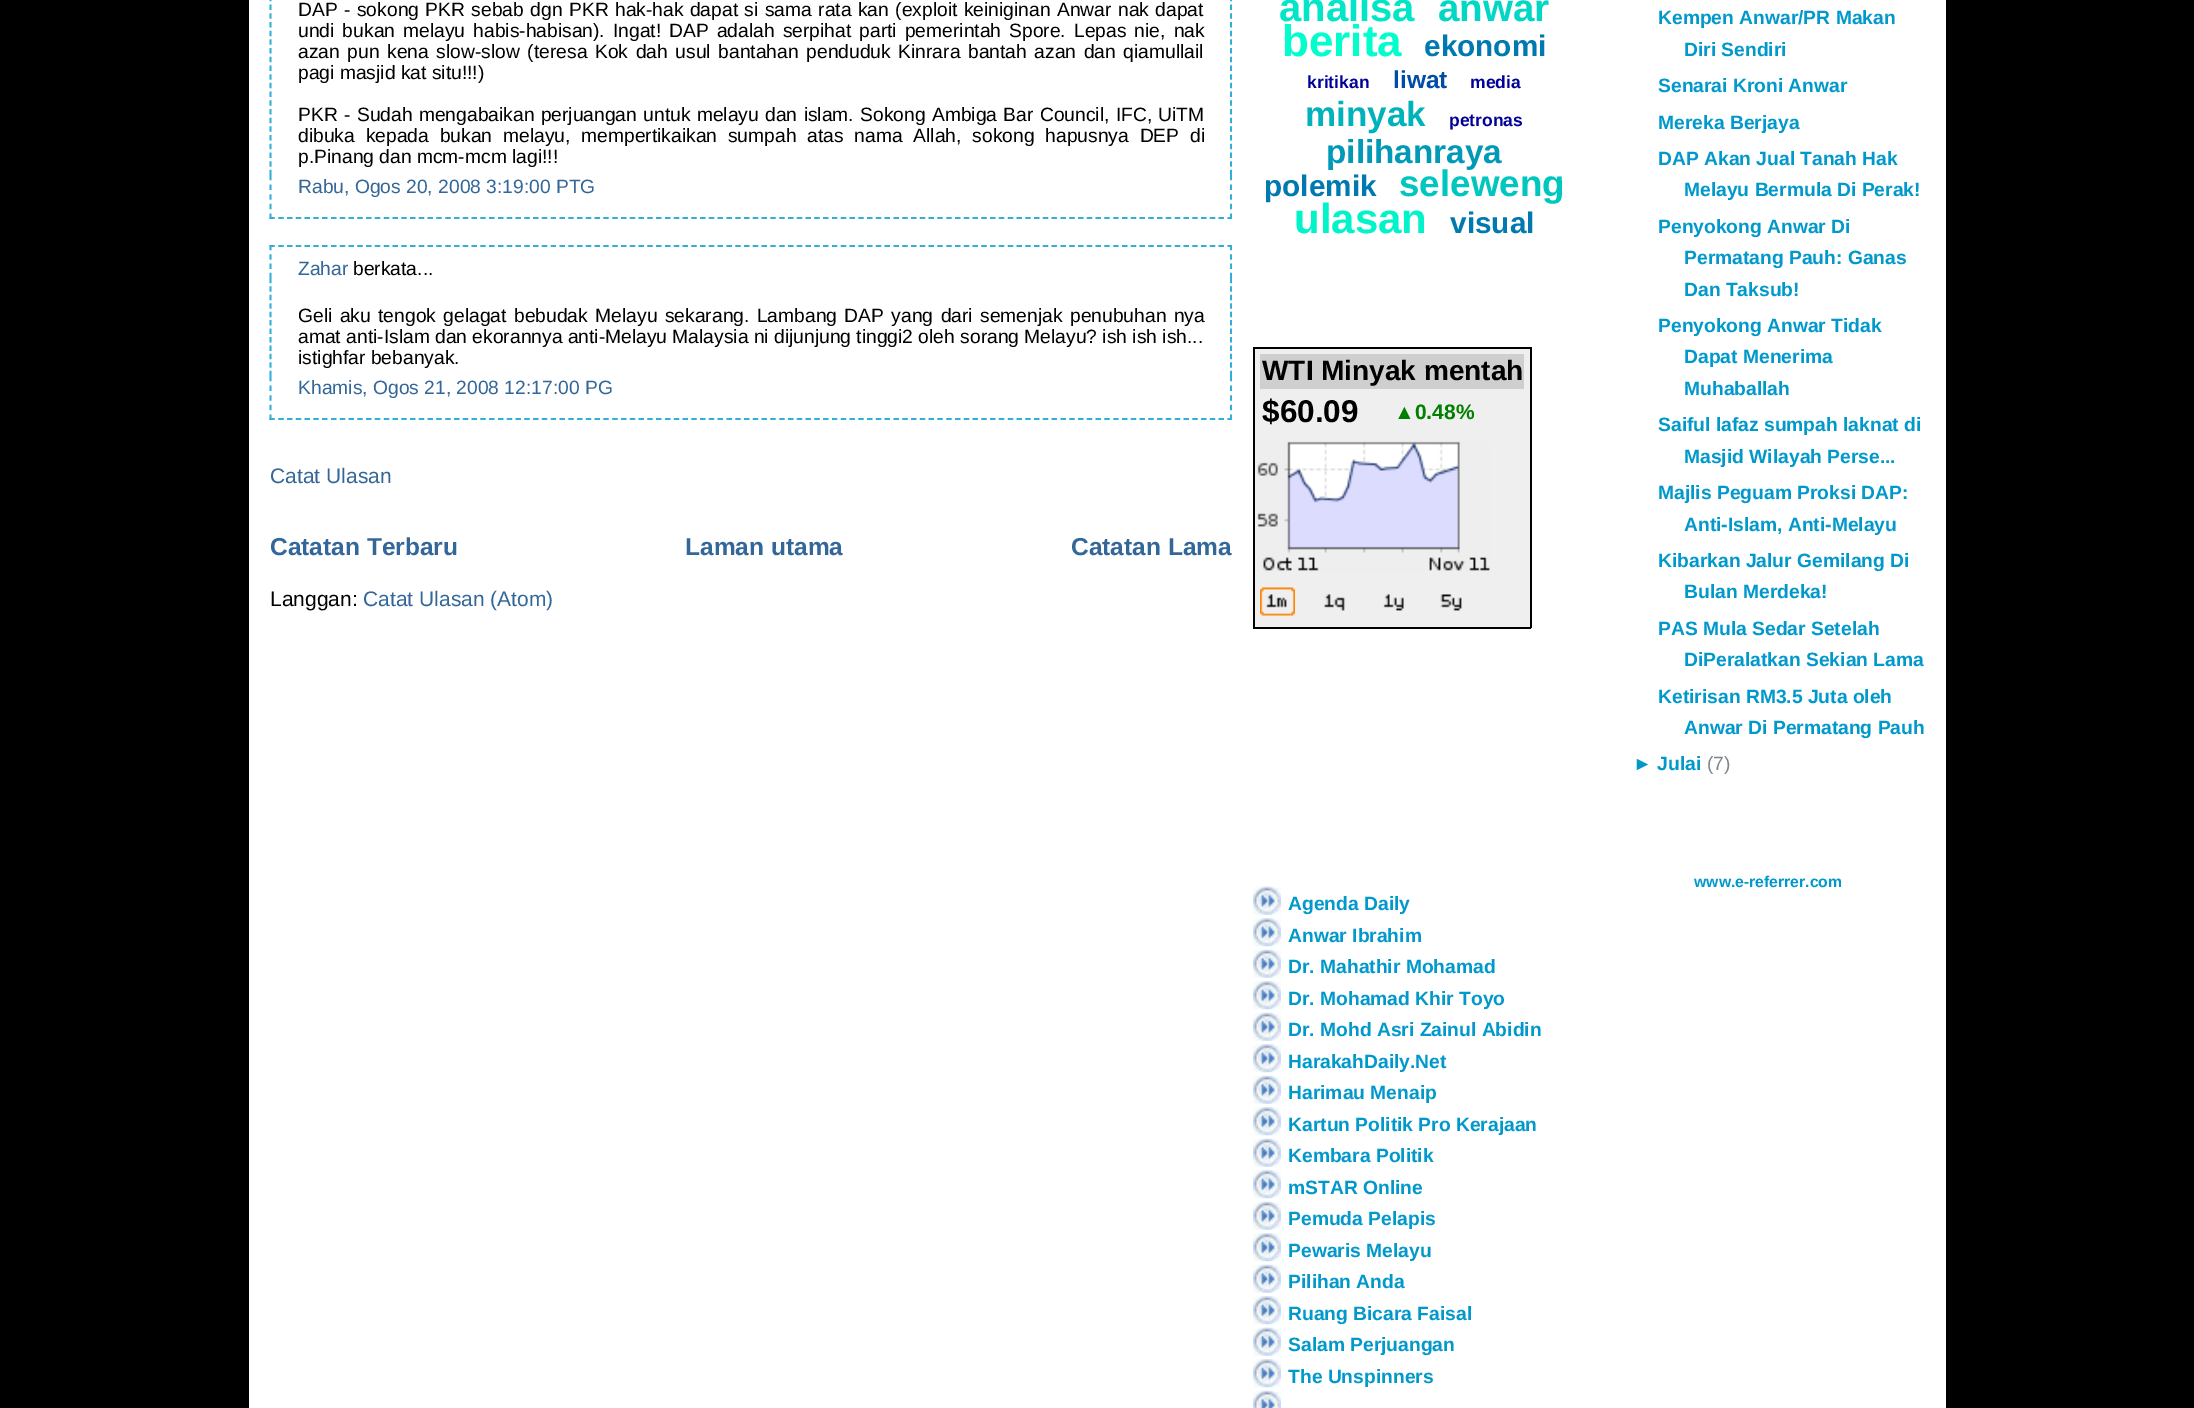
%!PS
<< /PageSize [2194 1408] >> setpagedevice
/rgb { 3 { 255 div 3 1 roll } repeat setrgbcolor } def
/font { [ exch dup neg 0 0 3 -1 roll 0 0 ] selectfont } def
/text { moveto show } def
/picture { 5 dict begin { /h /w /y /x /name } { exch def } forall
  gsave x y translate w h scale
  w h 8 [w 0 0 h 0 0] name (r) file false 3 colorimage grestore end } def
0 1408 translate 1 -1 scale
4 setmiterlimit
0 0 0 rgb
0 0 2194 1408 rectfill
255 255 255 rgb
249 0 1697 1408 rectfill
49 175 218 rgb
1.8 setlinewidth
[5.25 3.45] 0 setdash
1231 -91 moveto 0 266 rlineto stroke
270.5 -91 moveto 0 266 rlineto stroke
[5.25 4.38] 0 setdash
1231 175 moveto 0 44 rlineto stroke
[5.25 3.54] 0 setdash
269.5 218 moveto 962.5 0 rlineto stroke
[5.25 4.38] 0 setdash
270.5 175 moveto 0 44 rlineto stroke
[5.25 3.54] 0 setdash
269.5 246 moveto 962.5 0 rlineto stroke
[5.25 4.08] 0 setdash
1231 245 moveto 0 33 rlineto stroke
270.5 245 moveto 0 33 rlineto stroke
[5.25 3.19] 0 setdash
1231 278 moveto 0 98 rlineto stroke
270.5 278 moveto 0 98 rlineto stroke
[5.25 4.38] 0 setdash
1231 376 moveto 0 44 rlineto stroke
[5.25 3.54] 0 setdash
269.5 419 moveto 962.5 0 rlineto stroke
[5.25 4.38] 0 setdash
270.5 376 moveto 0 44 rlineto stroke
239 239 239 rgb
1255 349 275 278 rectfill
0 0 0 rgb
1253 347 278 2 rectfill
1530 347 2 281 rectfill
1253 627 278 2 rectfill
1253 347 2 281 rectfill
206 207 206 rgb
1260 354 264 35 rectfill
(img_01.rgb) 1257 441 233 130 picture
(img_02.rgb) 1260 587 35 29 picture
(img_03.rgb) 1324 594 21 17 picture
(img_04.rgb) 1383 594 21 17 picture
(img_05.rgb) 1440 594 22 17 picture
(img_06.rgb) 1253 886 28 29 picture
(img_07.rgb) 1253 918 28 29 picture
(img_06.rgb) 1253 949 28 29 picture
(img_07.rgb) 1253 981 28 29 picture
(img_06.rgb) 1253 1012 28 29 picture
(img_07.rgb) 1253 1044 28 29 picture
(img_06.rgb) 1253 1075 28 29 picture
(img_07.rgb) 1253 1107 28 29 picture
(img_06.rgb) 1253 1138 28 29 picture
(img_07.rgb) 1253 1170 28 29 picture
(img_06.rgb) 1253 1201 28 29 picture
(img_07.rgb) 1253 1233 28 29 picture
(img_06.rgb) 1253 1264 28 29 picture
(img_07.rgb) 1253 1296 28 29 picture
(img_06.rgb) 1253 1327 28 29 picture
(img_07.rgb) 1253 1359 28 29 picture
(img_08.rgb) 1253 1390 28 18 picture
/LiberationSans-Regular 19.25 font
0 0 0 rgb
298 16 moveto 1.1 0 32 (DAP - sokong PKR sebab dgn PKR hak-hak dapat si sama rata kan \(exploit keiniginan Anwar nak dapat) widthshow
298 37 moveto 2.75 0 32 (undi bukan melayu habis-habisan\). Ingat! DAP adalah serpihat parti pemerintah Spore. Lepas nie, nak) widthshow
298 58 moveto 2.25 0 32 (azan pun kena slow-slow \(teresa Kok dah usul bantahan penduduk Kinrara bantah azan dan qiamullail) widthshow
(pagi masjid kat situ!!!\)) 298 79 text
298 121 moveto 1 0 32 (PKR - Sudah mengabaikan perjuangan untuk melayu dan islam. Sokong Ambiga Bar Council, IFC, UiTM) widthshow
298 142 moveto 5.5 0 32 (dibuka kepada bukan melayu, mempertikaikan sumpah atas nama Allah, sokong hapusnya DEP di) widthshow
(p.Pinang dan mcm-mcm lagi!!!) 298 163 text
51 102 153 rgb
(Rabu, Ogos 20, 2008 3:19:00 PTG) 298 193 text
(Zahar) 298 275 text
0 0 0 rgb
(berkata...) 353 275 text
298 322 moveto 2.1 0 32 (Geli aku tengok gelagat bebudak Melayu sekarang. Lambang DAP yang dari semenjak penubuhan nya) widthshow
(amat anti-Islam dan ekorannya anti-Melayu Malaysia ni dijunjung tinggi2 oleh sorang Melayu? ish ish ish...) 298 343 text
(istighfar bebanyak.) 298 364 text
51 102 153 rgb
(Khamis, Ogos 21, 2008 12:17:00 PG) 298 394 text
/LiberationSans-Regular 21 font
(Catat Ulasan) 270 483 text
/LiberationSans-Bold 24.5 font
(Catatan Terbaru) 270 555 text
(Laman utama) 685 555 text
(Catatan Lama) 1071 555 text
/LiberationSans-Regular 21 font
0 0 0 rgb
(Langgan:) 270 606 text
51 102 153 rgb
(Catat Ulasan \(Atom\)) 363 606 text
/LiberationSans-Bold 40 font
0 230 199 rgb
(analisa) 1279 21 text
/LiberationSans-Bold 38.5 font
0 215 196 rgb
(anwar) 1438 21 text
/LiberationSans-Bold 44 font
0 255 204 rgb
(berita) 1282 56 text
/LiberationSans-Bold 29.75 font
0 121 177 rgb
(ekonomi) 1424 56 text
/LiberationSans-Bold 17.5 font
0 0 154 rgb
(kritikan) 1307 88 text
/LiberationSans-Bold 24.5 font
0 76 169 rgb
(liwat) 1393 88 text
/LiberationSans-Bold 17.5 font
0 0 154 rgb
(media) 1470 88 text
/LiberationSans-Bold 35 font
0 178 188 rgb
(minyak) 1305 126 text
/LiberationSans-Bold 17.5 font
0 0 154 rgb
(petronas) 1449 126 text
/LiberationSans-Bold 33.25 font
0 153 184 rgb
(pilihanraya) 1326 163 text
/LiberationSans-Bold 29.75 font
0 121 177 rgb
(polemik) 1264 196 text
/LiberationSans-Bold 36.75 font
0 198 192 rgb
(seleweng) 1399 196 text
/LiberationSans-Bold 42 font
0 243 201 rgb
(ulasan) 1294 233 text
/LiberationSans-Bold 29.75 font
0 121 177 rgb
(visual) 1450 233 text
/LiberationSans-Bold 28 font
0 0 0 rgb
(WTI Minyak mentah) 1262 380 text
/LiberationSans-Bold 31.5 font
($60.09) 1262 422 text
/LiberationSans-Bold 21 font
0 128 0 rgb
(▲0.48%) 1394 419 text
/LiberationSans-Bold 19.25 font
1 153 203 rgb
(Agenda Daily) 1288 910 text
(Anwar Ibrahim) 1288 942 text
(Dr. Mahathir Mohamad) 1288 973 text
(Dr. Mohamad Khir Toyo) 1288 1005 text
(Dr. Mohd Asri Zainul Abidin) 1288 1036 text
(HarakahDaily.Net) 1288 1068 text
(Harimau Menaip) 1288 1099 text
(Kartun Politik Pro Kerajaan) 1288 1131 text
(Kembara Politik) 1288 1162 text
(mSTAR Online) 1288 1194 text
(Pemuda Pelapis) 1288 1225 text
(Pewaris Melayu) 1288 1257 text
(Pilihan Anda) 1288 1288 text
(Ruang Bicara Faisal) 1288 1320 text
(Salam Perjuangan) 1288 1351 text
(The Unspinners) 1288 1383 text
(Kempen Anwar/PR Makan) 1658 24 text
(Diri Sendiri) 1684 56 text
(Senarai Kroni Anwar) 1658 92 text
(Mereka Berjaya) 1658 129 text
(DAP Akan Jual Tanah Hak) 1658 165 text
(Melayu Bermula Di Perak!) 1684 196 text
(Penyokong Anwar Di) 1658 233 text
(Permatang Pauh: Ganas) 1684 264 text
(Dan Taksub!) 1684 296 text
(Penyokong Anwar Tidak) 1658 332 text
(Dapat Menerima) 1684 363 text
(Muhaballah) 1684 395 text
(Saiful lafaz sumpah laknat di) 1658 431 text
(Masjid Wilayah Perse...) 1684 463 text
(Majlis Peguam Proksi DAP:) 1658 499 text
(Anti-Islam, Anti-Melayu) 1684 531 text
(Kibarkan Jalur Gemilang Di) 1658 567 text
(Bulan Merdeka!) 1684 598 text
(PAS Mula Sedar Setelah) 1658 635 text
(DiPeralatkan Sekian Lama) 1684 666 text
(Ketirisan RM3.5 Juta oleh) 1658 703 text
(Anwar Di Permatang Pauh) 1684 734 text
(► Julai) 1633 770 text
/LiberationSans-Regular 19.25 font
122 136 140 rgb
(\(7\)) 1707 770 text
/LiberationSans-Bold 15.75 font
1 153 203 rgb
(www.e-referrer.com) 1694 887 text
showpage
